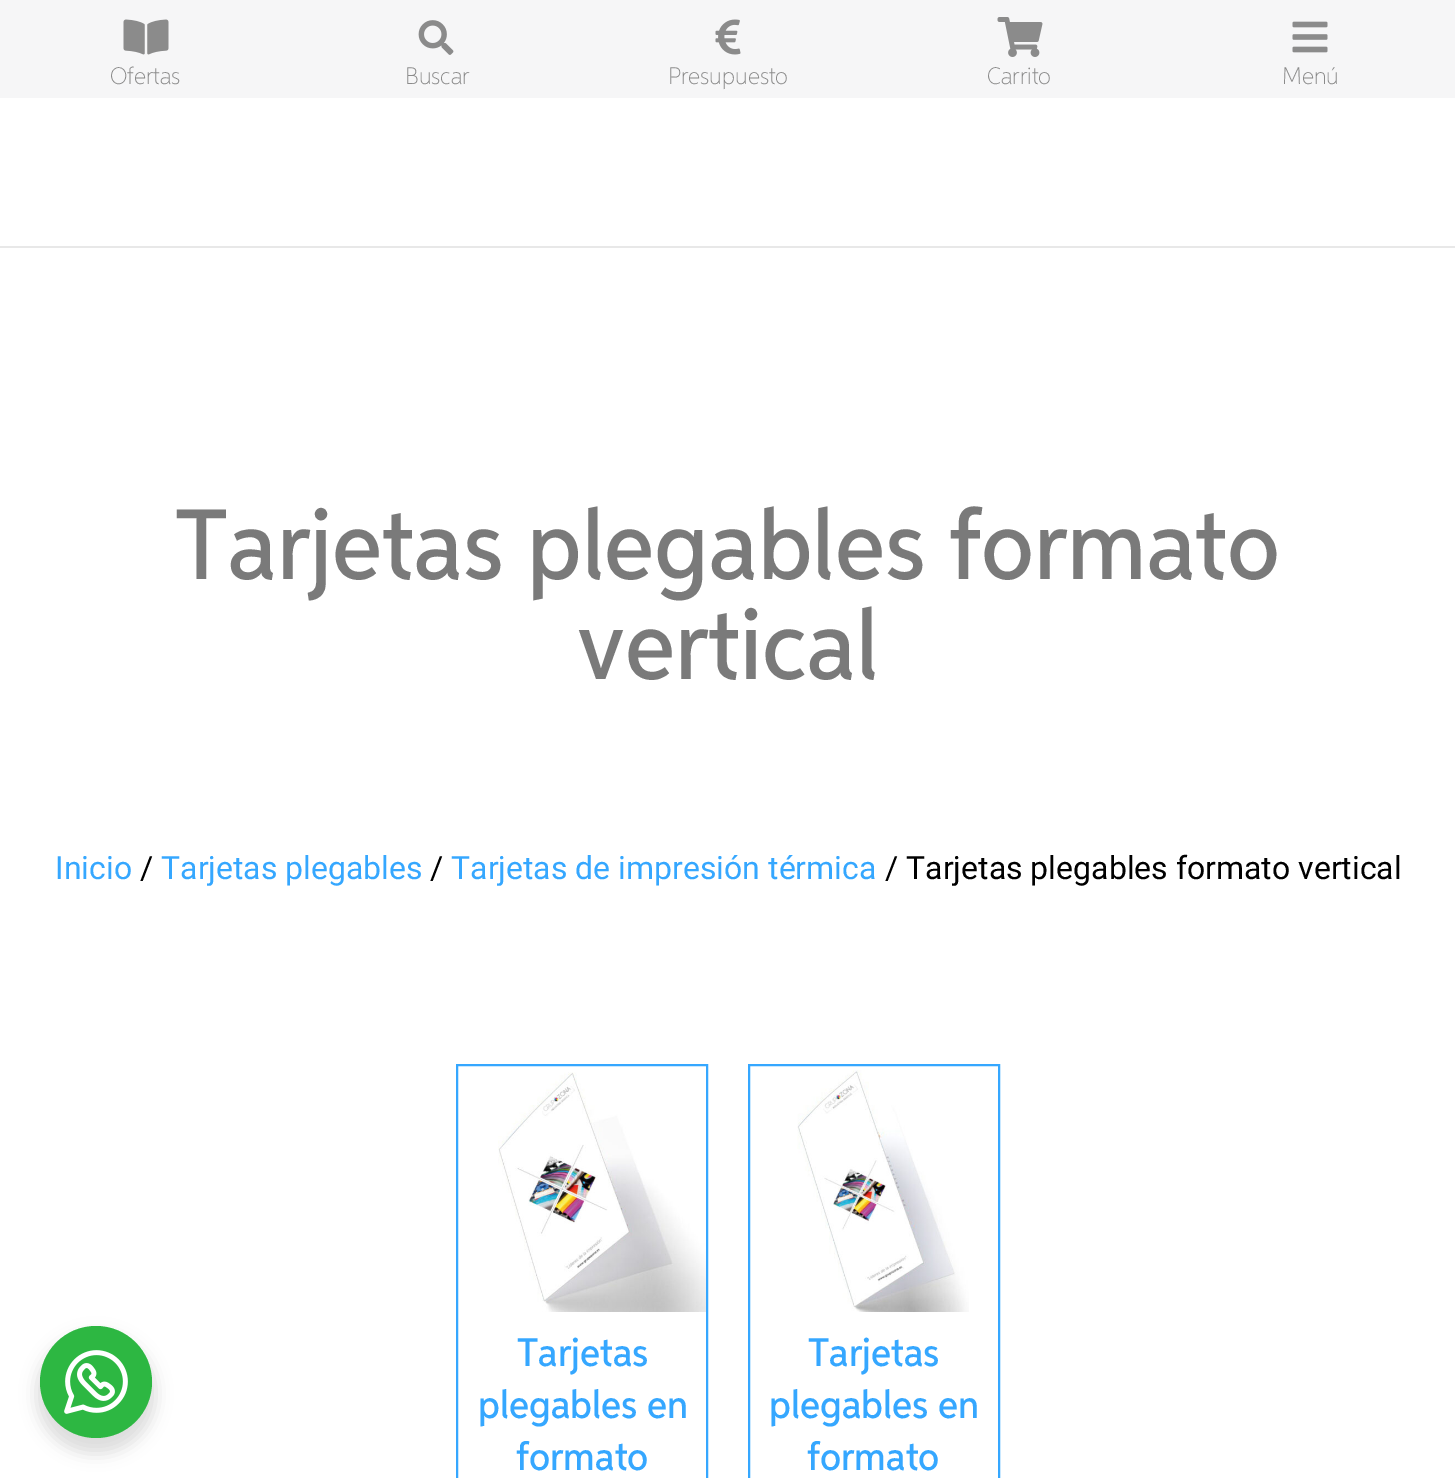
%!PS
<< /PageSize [1455 1478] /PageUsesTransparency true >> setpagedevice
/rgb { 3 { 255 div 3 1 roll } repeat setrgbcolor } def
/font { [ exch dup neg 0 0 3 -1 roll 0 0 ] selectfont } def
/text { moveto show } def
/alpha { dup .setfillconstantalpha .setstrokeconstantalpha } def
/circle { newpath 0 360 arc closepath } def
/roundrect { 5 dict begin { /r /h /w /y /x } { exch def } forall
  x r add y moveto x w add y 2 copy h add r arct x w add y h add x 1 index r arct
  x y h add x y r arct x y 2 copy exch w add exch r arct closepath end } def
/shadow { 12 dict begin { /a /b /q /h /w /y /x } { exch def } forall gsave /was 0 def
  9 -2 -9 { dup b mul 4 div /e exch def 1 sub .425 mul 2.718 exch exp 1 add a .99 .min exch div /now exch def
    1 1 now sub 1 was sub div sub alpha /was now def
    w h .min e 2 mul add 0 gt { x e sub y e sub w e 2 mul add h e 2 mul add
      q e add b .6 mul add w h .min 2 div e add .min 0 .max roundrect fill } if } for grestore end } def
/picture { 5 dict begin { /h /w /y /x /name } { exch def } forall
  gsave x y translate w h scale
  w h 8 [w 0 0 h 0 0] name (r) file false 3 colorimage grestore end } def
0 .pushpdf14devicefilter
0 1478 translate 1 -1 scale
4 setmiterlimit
255 255 255 rgb
0 0 1455 1478 rectfill
246 246 247 rgb
0 0 1455 98 rectfill
(img_01.rgb) 123 19 46 36 picture
(img_02.rgb) 418 20 36 35 picture
(img_03.rgb) 715 19 26 36 picture
(img_04.rgb) 997 17 46 40 picture
(img_05.rgb) 1292 21 36 32 picture
232 232 232 rgb
0 246 1455 2 rectfill
53 167 255 rgb
2 setlinewidth
457 1065 250 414 rectstroke
(img_06.rgb) 498 1072 208 240 picture
749 1065 250 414 rectstroke
(img_07.rgb) 797 1070 172 242 picture
0 0 0 rgb
36 1334 120 120 60 8 0.14 shadow
45 183 66 rgb
96 1382 56 circle fill
(img_08.rgb) 64 1350 64 64 picture
/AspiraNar-Thin 24 font
139 139 139 rgb
(Ofertas) 110 84 text
(Buscar) 405 84 text
(Presupuesto) 668 84 text
(Carrito) 987 84 text
(Menú) 1282 84 text
/AspiraNar-Medium 100 font
122 122 122 rgb
(Tarjetas plegables formato) 175 579 text
(vertical) 577 679 text
/Roboto-Regular 32 font
53 167 255 rgb
(Inicio) 55 879 text
0 0 0 rgb
(/) 140 879 text
53 167 255 rgb
(Tarjetas plegables) 161 879 text
0 0 0 rgb
(/) 430 879 text
53 167 255 rgb
(Tarjetas de impresión térmica) 451 879 text
0 0 0 rgb
(/ Tarjetas plegables formato vertical) 885 879 text
/AspiraNar-Medium 40 font
53 167 255 rgb
(Tarjetas) 517 1366 text
(plegables en) 478 1418 text
(formato) 516 1470 text
(Tarjetas) 808 1366 text
(plegables en) 769 1418 text
(formato) 807 1470 text
.poppdf14devicefilter showpage
